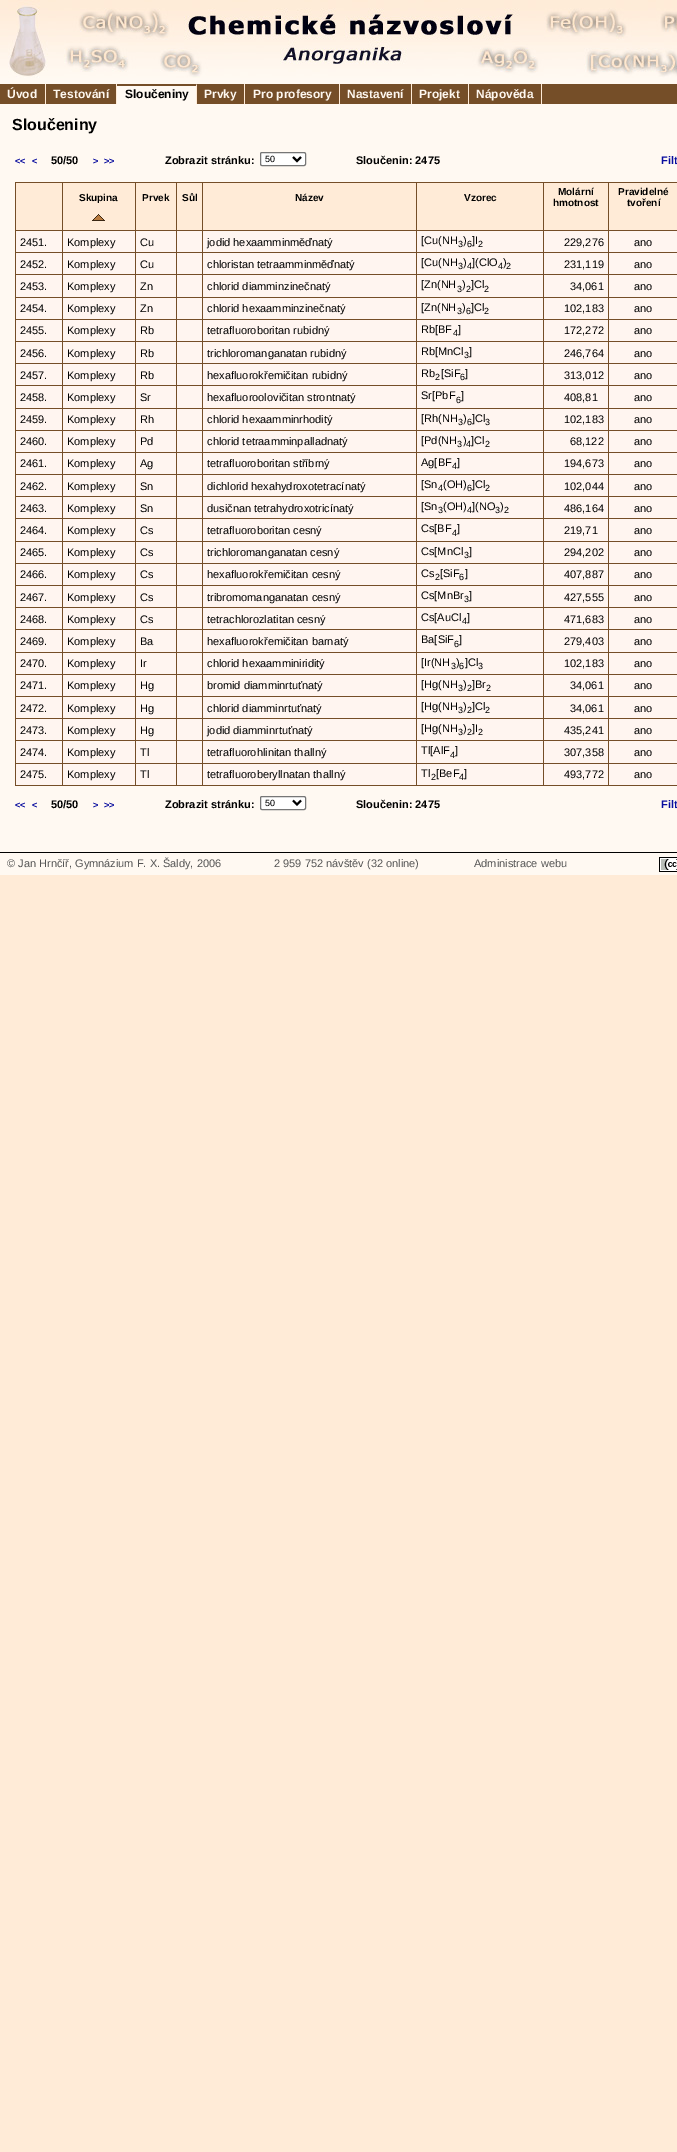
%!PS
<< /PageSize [677 2152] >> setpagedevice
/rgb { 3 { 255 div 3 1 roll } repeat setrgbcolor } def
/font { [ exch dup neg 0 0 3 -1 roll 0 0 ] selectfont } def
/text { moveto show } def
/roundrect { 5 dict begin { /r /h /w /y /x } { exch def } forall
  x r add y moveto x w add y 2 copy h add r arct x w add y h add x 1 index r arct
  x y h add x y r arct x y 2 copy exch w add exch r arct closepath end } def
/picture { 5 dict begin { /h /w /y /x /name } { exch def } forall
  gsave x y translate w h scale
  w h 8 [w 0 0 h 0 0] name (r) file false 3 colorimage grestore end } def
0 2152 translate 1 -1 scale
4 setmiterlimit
255 235 215 rgb
0 0 677 2152 rectfill
255 249 242 rgb
0 78 677 797 rectfill
(img_01.rgb) 0 0 677 78 picture
117 78 40 rgb
0 84 677 20 rectfill
255 235 215 rgb
45 84 1 20 rectfill
116 84 1 20 rectfill
255 249 242 rgb
117 84 80 20 rectfill
117 78 40 rgb
117 84 moveto 80 0 rlineto -1 2 rlineto -79 0 rlineto closepath fill
255 235 215 rgb
197 84 moveto 0 20 rlineto -1 0 rlineto 0 -18 rlineto closepath fill
244 84 1 20 rectfill
339 84 1 20 rectfill
411 84 1 20 rectfill
468 84 1 20 rectfill
541 84 1 20 rectfill
255 255 255 rgb
260.5 152.5 45 13 1.5 roundrect gsave fill grestore
118 118 118 rgb
stroke
0 0 0 rgb
2 setlinewidth
293 157 moveto 4 4 rlineto 4 -4 rlineto stroke
255 245 240 rgb
16 231 661 554 rectfill
117 78 40 rgb
15 785 662 1 rectfill
255 235 215 rgb
16 183 661 47 rectfill
117 78 40 rgb
15 182 662 1 rectfill
15 182 1 48 rectfill
62 182 1 48 rectfill
(img_02.rgb) 92 214 13 7 picture
135 182 1 48 rectfill
176 182 1 48 rectfill
202 182 1 48 rectfill
416 182 1 48 rectfill
543 182 1 48 rectfill
608 182 1 48 rectfill
15 230 662 1 rectfill
15 230 1 22 rectfill
62 230 1 22 rectfill
135 230 1 22 rectfill
176 230 1 22 rectfill
202 230 1 22 rectfill
416 230 1 22 rectfill
543 230 1 22 rectfill
608 230 1 22 rectfill
15 252 662 1 rectfill
15 252 1 22 rectfill
62 252 1 22 rectfill
135 252 1 22 rectfill
176 252 1 22 rectfill
202 252 1 22 rectfill
416 252 1 22 rectfill
543 252 1 22 rectfill
608 252 1 22 rectfill
15 274 662 1 rectfill
15 274 1 23 rectfill
62 274 1 23 rectfill
135 274 1 23 rectfill
176 274 1 23 rectfill
202 274 1 23 rectfill
416 274 1 23 rectfill
543 274 1 23 rectfill
608 274 1 23 rectfill
15 297 662 1 rectfill
15 297 1 22 rectfill
62 297 1 22 rectfill
135 297 1 22 rectfill
176 297 1 22 rectfill
202 297 1 22 rectfill
416 297 1 22 rectfill
543 297 1 22 rectfill
608 297 1 22 rectfill
15 319 662 1 rectfill
15 319 1 22 rectfill
62 319 1 22 rectfill
135 319 1 22 rectfill
176 319 1 22 rectfill
202 319 1 22 rectfill
416 319 1 22 rectfill
543 319 1 22 rectfill
608 319 1 22 rectfill
15 341 662 1 rectfill
15 341 1 22 rectfill
62 341 1 22 rectfill
135 341 1 22 rectfill
176 341 1 22 rectfill
202 341 1 22 rectfill
416 341 1 22 rectfill
543 341 1 22 rectfill
608 341 1 22 rectfill
15 363 662 1 rectfill
15 363 1 22 rectfill
62 363 1 22 rectfill
135 363 1 22 rectfill
176 363 1 22 rectfill
202 363 1 22 rectfill
416 363 1 22 rectfill
543 363 1 22 rectfill
608 363 1 22 rectfill
15 385 662 1 rectfill
15 385 1 23 rectfill
62 385 1 23 rectfill
135 385 1 23 rectfill
176 385 1 23 rectfill
202 385 1 23 rectfill
416 385 1 23 rectfill
543 385 1 23 rectfill
608 385 1 23 rectfill
15 408 662 1 rectfill
15 408 1 22 rectfill
62 408 1 22 rectfill
135 408 1 22 rectfill
176 408 1 22 rectfill
202 408 1 22 rectfill
416 408 1 22 rectfill
543 408 1 22 rectfill
608 408 1 22 rectfill
15 430 662 1 rectfill
15 430 1 22 rectfill
62 430 1 22 rectfill
135 430 1 22 rectfill
176 430 1 22 rectfill
202 430 1 22 rectfill
416 430 1 22 rectfill
543 430 1 22 rectfill
608 430 1 22 rectfill
15 452 662 1 rectfill
15 452 1 22 rectfill
62 452 1 22 rectfill
135 452 1 22 rectfill
176 452 1 22 rectfill
202 452 1 22 rectfill
416 452 1 22 rectfill
543 452 1 22 rectfill
608 452 1 22 rectfill
15 474 662 1 rectfill
15 474 1 22 rectfill
62 474 1 22 rectfill
135 474 1 22 rectfill
176 474 1 22 rectfill
202 474 1 22 rectfill
416 474 1 22 rectfill
543 474 1 22 rectfill
608 474 1 22 rectfill
15 496 662 1 rectfill
15 496 1 22 rectfill
62 496 1 22 rectfill
135 496 1 22 rectfill
176 496 1 22 rectfill
202 496 1 22 rectfill
416 496 1 22 rectfill
543 496 1 22 rectfill
608 496 1 22 rectfill
15 518 662 1 rectfill
15 518 1 23 rectfill
62 518 1 23 rectfill
135 518 1 23 rectfill
176 518 1 23 rectfill
202 518 1 23 rectfill
416 518 1 23 rectfill
543 518 1 23 rectfill
608 518 1 23 rectfill
15 541 662 1 rectfill
15 541 1 22 rectfill
62 541 1 22 rectfill
135 541 1 22 rectfill
176 541 1 22 rectfill
202 541 1 22 rectfill
416 541 1 22 rectfill
543 541 1 22 rectfill
608 541 1 22 rectfill
15 563 662 1 rectfill
15 563 1 22 rectfill
62 563 1 22 rectfill
135 563 1 22 rectfill
176 563 1 22 rectfill
202 563 1 22 rectfill
416 563 1 22 rectfill
543 563 1 22 rectfill
608 563 1 22 rectfill
15 585 662 1 rectfill
15 585 1 22 rectfill
62 585 1 22 rectfill
135 585 1 22 rectfill
176 585 1 22 rectfill
202 585 1 22 rectfill
416 585 1 22 rectfill
543 585 1 22 rectfill
608 585 1 22 rectfill
15 607 662 1 rectfill
15 607 1 22 rectfill
62 607 1 22 rectfill
135 607 1 22 rectfill
176 607 1 22 rectfill
202 607 1 22 rectfill
416 607 1 22 rectfill
543 607 1 22 rectfill
608 607 1 22 rectfill
15 629 662 1 rectfill
15 629 1 23 rectfill
62 629 1 23 rectfill
135 629 1 23 rectfill
176 629 1 23 rectfill
202 629 1 23 rectfill
416 629 1 23 rectfill
543 629 1 23 rectfill
608 629 1 23 rectfill
15 652 662 1 rectfill
15 652 1 22 rectfill
62 652 1 22 rectfill
135 652 1 22 rectfill
176 652 1 22 rectfill
202 652 1 22 rectfill
416 652 1 22 rectfill
543 652 1 22 rectfill
608 652 1 22 rectfill
15 674 662 1 rectfill
15 674 1 22 rectfill
62 674 1 22 rectfill
135 674 1 22 rectfill
176 674 1 22 rectfill
202 674 1 22 rectfill
416 674 1 22 rectfill
543 674 1 22 rectfill
608 674 1 22 rectfill
15 696 662 1 rectfill
15 696 1 22 rectfill
62 696 1 22 rectfill
135 696 1 22 rectfill
176 696 1 22 rectfill
202 696 1 22 rectfill
416 696 1 22 rectfill
543 696 1 22 rectfill
608 696 1 22 rectfill
15 718 662 1 rectfill
15 718 1 22 rectfill
62 718 1 22 rectfill
135 718 1 22 rectfill
176 718 1 22 rectfill
202 718 1 22 rectfill
416 718 1 22 rectfill
543 718 1 22 rectfill
608 718 1 22 rectfill
15 740 662 1 rectfill
15 740 1 23 rectfill
62 740 1 23 rectfill
135 740 1 23 rectfill
176 740 1 23 rectfill
202 740 1 23 rectfill
416 740 1 23 rectfill
543 740 1 23 rectfill
608 740 1 23 rectfill
15 763 662 1 rectfill
15 763 1 22 rectfill
62 763 1 22 rectfill
135 763 1 22 rectfill
176 763 1 22 rectfill
202 763 1 22 rectfill
416 763 1 22 rectfill
543 763 1 22 rectfill
608 763 1 22 rectfill
255 255 255 rgb
260.5 796.5 45 13 1.5 roundrect gsave fill grestore
118 118 118 rgb
1 setlinewidth
stroke
0 0 0 rgb
2 setlinewidth
293 800.5 moveto 4 4 rlineto 4 -4 rlineto stroke
0 852 677 1 rectfill
(img_03.rgb) 659 857 18 15 picture
/LiberationSans-Bold 12 font
255 248 240 rgb
(Úvod) 7 98 text
(Testování) 53 98 text
0 0 0 rgb
(Sloučeniny) 125 98 text
255 248 240 rgb
(Prvky) 204 98 text
(Pro profesory) 253 98 text
(Nastavení) 347 98 text
(Projekt) 419 98 text
(Nápověda) 476 98 text
/LiberationSans-Bold 16 font
0 0 0 rgb
(Sloučeniny) 12 130 text
/LiberationSans-Bold 9 font
9 13 159 rgb
(<<) 15 164 text
(<) 32 164 text
/LiberationSans-Bold 11 font
0 0 0 rgb
(50/50) 51 164 text
/LiberationSans-Bold 9 font
9 13 159 rgb
(>) 93 164 text
(>>) 104 164 text
/LiberationSans-Bold 11 font
0 0 0 rgb
(Zobrazit stránku:) 165 164 text
/LiberationSans-Regular 9 font
(50) 265 162 text
/LiberationSans-Bold 11 font
(Sloučenin: 2475) 356 164 text
9 13 159 rgb
(Filt) 661 164 text
/LiberationSans-Bold 10 font
0 0 0 rgb
(Skupina) 79 201 text
(Prvek) 142 201 text
(Sůl) 182 201 text
(Název) 295 201 text
(Vzorec) 464 201 text
(Molární) 558 195 text
(hmotnost) 553 206 text
(Pravidelné) 618 195 text
(tvoření) 627 206 text
/LiberationSans-Regular 11 font
(2451.) 20 246 text
(Komplexy) 67 246 text
(Cu) 140 246 text
(jodid hexaamminměďnatý) 207 246 text
([Cu\(NH) 421 244 text
/LiberationSans-Regular 9 font
(3) 458 247 text
/LiberationSans-Regular 11 font
(\)) 463 244 text
/LiberationSans-Regular 9 font
(6) 467 247 text
/LiberationSans-Regular 11 font
(]I) 472 244 text
/LiberationSans-Regular 9 font
(2) 478 247 text
/LiberationSans-Regular 11 font
(229,276) 564 246 text
(ano) 634 246 text
(2452.) 20 268 text
(Komplexy) 67 268 text
(Cu) 140 268 text
(chloristan tetraamminměďnatý) 207 268 text
([Cu\(NH) 421 266 text
/LiberationSans-Regular 9 font
(3) 458 269 text
/LiberationSans-Regular 11 font
(\)) 463 266 text
/LiberationSans-Regular 9 font
(4) 467 269 text
/LiberationSans-Regular 11 font
(]\(ClO) 472 266 text
/LiberationSans-Regular 9 font
(4) 498 269 text
/LiberationSans-Regular 11 font
(\)) 503 266 text
/LiberationSans-Regular 9 font
(2) 506 269 text
/LiberationSans-Regular 11 font
(231,119) 564 268 text
(ano) 634 268 text
(2453.) 20 290 text
(Komplexy) 67 290 text
(Zn) 140 290 text
(chlorid diamminzinečnatý) 207 290 text
([Zn\(NH) 421 288 text
/LiberationSans-Regular 9 font
(3) 457 292 text
/LiberationSans-Regular 11 font
(\)) 462 288 text
/LiberationSans-Regular 9 font
(2) 466 292 text
/LiberationSans-Regular 11 font
(]Cl) 471 288 text
/LiberationSans-Regular 9 font
(2) 484 292 text
/LiberationSans-Regular 11 font
(34,061) 570 290 text
(ano) 634 290 text
(2454.) 20 312 text
(Komplexy) 67 312 text
(Zn) 140 312 text
(chlorid hexaamminzinečnatý) 207 312 text
([Zn\(NH) 421 311 text
/LiberationSans-Regular 9 font
(3) 457 314 text
/LiberationSans-Regular 11 font
(\)) 462 311 text
/LiberationSans-Regular 9 font
(6) 466 314 text
/LiberationSans-Regular 11 font
(]Cl) 471 311 text
/LiberationSans-Regular 9 font
(2) 484 314 text
/LiberationSans-Regular 11 font
(102,183) 564 312 text
(ano) 634 312 text
(2455.) 20 334 text
(Komplexy) 67 334 text
(Rb) 140 334 text
(tetrafluoroboritan rubidný) 207 334 text
(Rb[BF) 421 333 text
/LiberationSans-Regular 9 font
(4) 453 336 text
/LiberationSans-Regular 11 font
(]) 458 333 text
(172,272) 564 334 text
(ano) 634 334 text
(2456.) 20 357 text
(Komplexy) 67 357 text
(Rb) 140 357 text
(trichloromanganatan rubidný) 207 357 text
(Rb[MnCl) 421 355 text
/LiberationSans-Regular 9 font
(3) 464 358 text
/LiberationSans-Regular 11 font
(]) 469 355 text
(246,764) 564 357 text
(ano) 634 357 text
(2457.) 20 379 text
(Komplexy) 67 379 text
(Rb) 140 379 text
(hexafluorokřemičitan rubidný) 207 379 text
(Rb) 421 377 text
/LiberationSans-Regular 9 font
(2) 435 380 text
/LiberationSans-Regular 11 font
([SiF) 441 377 text
/LiberationSans-Regular 9 font
(6) 460 380 text
/LiberationSans-Regular 11 font
(]) 465 377 text
(313,012) 564 379 text
(ano) 634 379 text
(2458.) 20 401 text
(Komplexy) 67 401 text
(Sr) 140 401 text
(hexafluoroolovičitan strontnatý) 207 401 text
(Sr[PbF) 421 399 text
/LiberationSans-Regular 9 font
(6) 456 403 text
/LiberationSans-Regular 11 font
(]) 461 399 text
(408,81) 564 401 text
(ano) 634 401 text
(2459.) 20 423 text
(Komplexy) 67 423 text
(Rh) 140 423 text
(chlorid hexaamminrhoditý) 207 423 text
([Rh\(NH) 421 422 text
/LiberationSans-Regular 9 font
(3) 458 425 text
/LiberationSans-Regular 11 font
(\)) 463 422 text
/LiberationSans-Regular 9 font
(6) 467 425 text
/LiberationSans-Regular 11 font
(]Cl) 472 422 text
/LiberationSans-Regular 9 font
(3) 485 425 text
/LiberationSans-Regular 11 font
(102,183) 564 423 text
(ano) 634 423 text
(2460.) 20 445 text
(Komplexy) 67 445 text
(Pd) 140 445 text
(chlorid tetraamminpalladnatý) 207 445 text
([Pd\(NH) 421 444 text
/LiberationSans-Regular 9 font
(3) 457 447 text
/LiberationSans-Regular 11 font
(\)) 463 444 text
/LiberationSans-Regular 9 font
(4) 466 447 text
/LiberationSans-Regular 11 font
(]Cl) 471 444 text
/LiberationSans-Regular 9 font
(2) 485 447 text
/LiberationSans-Regular 11 font
(68,122) 570 445 text
(ano) 634 445 text
(2461.) 20 467 text
(Komplexy) 67 467 text
(Ag) 140 467 text
(tetrafluoroboritan stříbrný) 207 467 text
(Ag[BF) 421 466 text
/LiberationSans-Regular 9 font
(4) 452 469 text
/LiberationSans-Regular 11 font
(]) 457 466 text
(194,673) 564 467 text
(ano) 634 467 text
(2462.) 20 490 text
(Komplexy) 67 490 text
(Sn) 140 490 text
(dichlorid hexahydroxotetracínatý) 207 490 text
([Sn) 421 488 text
/LiberationSans-Regular 9 font
(4) 438 491 text
/LiberationSans-Regular 11 font
(\(OH\)) 443 488 text
/LiberationSans-Regular 9 font
(6) 467 491 text
/LiberationSans-Regular 11 font
(]Cl) 472 488 text
/LiberationSans-Regular 9 font
(2) 485 491 text
/LiberationSans-Regular 11 font
(102,044) 564 490 text
(ano) 634 490 text
(2463.) 20 512 text
(Komplexy) 67 512 text
(Sn) 140 512 text
(dusičnan tetrahydroxotricínatý) 207 512 text
([Sn) 421 510 text
/LiberationSans-Regular 9 font
(3) 438 513 text
/LiberationSans-Regular 11 font
(\(OH\)) 443 510 text
/LiberationSans-Regular 9 font
(4) 467 513 text
/LiberationSans-Regular 11 font
(]\(NO) 472 510 text
/LiberationSans-Regular 9 font
(3) 495 513 text
/LiberationSans-Regular 11 font
(\)) 500 510 text
/LiberationSans-Regular 9 font
(2) 504 513 text
/LiberationSans-Regular 11 font
(486,164) 564 512 text
(ano) 634 512 text
(2464.) 20 534 text
(Komplexy) 67 534 text
(Cs) 140 534 text
(tetrafluoroboritan cesný) 207 534 text
(Cs[BF) 421 532 text
/LiberationSans-Regular 9 font
(4) 452 536 text
/LiberationSans-Regular 11 font
(]) 457 532 text
(219,71) 564 534 text
(ano) 634 534 text
(2465.) 20 556 text
(Komplexy) 67 556 text
(Cs) 140 556 text
(trichloromanganatan cesný) 207 556 text
(Cs[MnCl) 421 555 text
/LiberationSans-Regular 9 font
(3) 464 558 text
/LiberationSans-Regular 11 font
(]) 469 555 text
(294,202) 564 556 text
(ano) 634 556 text
(2466.) 20 578 text
(Komplexy) 67 578 text
(Cs) 140 578 text
(hexafluorokřemičitan cesný) 207 578 text
(Cs) 421 577 text
/LiberationSans-Regular 9 font
(2) 435 580 text
/LiberationSans-Regular 11 font
([SiF) 440 577 text
/LiberationSans-Regular 9 font
(6) 459 580 text
/LiberationSans-Regular 11 font
(]) 465 577 text
(407,887) 564 578 text
(ano) 634 578 text
(2467.) 20 601 text
(Komplexy) 67 601 text
(Cs) 140 601 text
(tribromomanganatan cesný) 207 601 text
(Cs[MnBr) 421 599 text
/LiberationSans-Regular 9 font
(3) 464 602 text
/LiberationSans-Regular 11 font
(]) 469 599 text
(427,555) 564 601 text
(ano) 634 601 text
(2468.) 20 623 text
(Komplexy) 67 623 text
(Cs) 140 623 text
(tetrachlorozlatitan cesný) 207 623 text
(Cs[AuCl) 421 621 text
/LiberationSans-Regular 9 font
(4) 462 624 text
/LiberationSans-Regular 11 font
(]) 467 621 text
(471,683) 564 623 text
(ano) 634 623 text
(2469.) 20 645 text
(Komplexy) 67 645 text
(Ba) 140 645 text
(hexafluorokřemičitan barnatý) 207 645 text
(Ba[SiF) 421 643 text
/LiberationSans-Regular 9 font
(6) 454 647 text
/LiberationSans-Regular 11 font
(]) 459 643 text
(279,403) 564 645 text
(ano) 634 645 text
(2470.) 20 667 text
(Komplexy) 67 667 text
(Ir) 140 667 text
(chlorid hexaamminiriditý) 207 667 text
([Ir\(NH) 421 666 text
/LiberationSans-Regular 9 font
(3) 451 669 text
/LiberationSans-Regular 11 font
(\)) 456 666 text
/LiberationSans-Regular 9 font
(6) 459 669 text
/LiberationSans-Regular 11 font
(]Cl) 465 666 text
/LiberationSans-Regular 9 font
(3) 478 669 text
/LiberationSans-Regular 11 font
(102,183) 564 667 text
(ano) 634 667 text
(2471.) 20 689 text
(Komplexy) 67 689 text
(Hg) 140 689 text
(bromid diamminrtuťnatý) 207 689 text
([Hg\(NH) 421 688 text
/LiberationSans-Regular 9 font
(3) 458 691 text
/LiberationSans-Regular 11 font
(\)) 463 688 text
/LiberationSans-Regular 9 font
(2) 467 691 text
/LiberationSans-Regular 11 font
(]Br) 472 688 text
/LiberationSans-Regular 9 font
(2) 486 691 text
/LiberationSans-Regular 11 font
(34,061) 570 689 text
(ano) 634 689 text
(2472.) 20 712 text
(Komplexy) 67 712 text
(Hg) 140 712 text
(chlorid diamminrtuťnatý) 207 712 text
([Hg\(NH) 421 710 text
/LiberationSans-Regular 9 font
(3) 458 713 text
/LiberationSans-Regular 11 font
(\)) 463 710 text
/LiberationSans-Regular 9 font
(2) 467 713 text
/LiberationSans-Regular 11 font
(]Cl) 472 710 text
/LiberationSans-Regular 9 font
(2) 485 713 text
/LiberationSans-Regular 11 font
(34,061) 570 712 text
(ano) 634 712 text
(2473.) 20 734 text
(Komplexy) 67 734 text
(Hg) 140 734 text
(jodid diamminrtuťnatý) 207 734 text
([Hg\(NH) 421 732 text
/LiberationSans-Regular 9 font
(3) 458 735 text
/LiberationSans-Regular 11 font
(\)) 463 732 text
/LiberationSans-Regular 9 font
(2) 467 735 text
/LiberationSans-Regular 11 font
(]I) 472 732 text
/LiberationSans-Regular 9 font
(2) 478 735 text
/LiberationSans-Regular 11 font
(435,241) 564 734 text
(ano) 634 734 text
(2474.) 20 756 text
(Komplexy) 67 756 text
(Tl) 140 756 text
(tetrafluorohlinitan thallný) 207 756 text
(Tl[AlF) 421 754 text
/LiberationSans-Regular 9 font
(4) 450 758 text
/LiberationSans-Regular 11 font
(]) 455 754 text
(307,358) 564 756 text
(ano) 634 756 text
(2475.) 20 778 text
(Komplexy) 67 778 text
(Tl) 140 778 text
(tetrafluoroberyllnatan thallný) 207 778 text
(Tl) 421 777 text
/LiberationSans-Regular 9 font
(2) 431 780 text
/LiberationSans-Regular 11 font
([BeF) 436 777 text
/LiberationSans-Regular 9 font
(4) 459 780 text
/LiberationSans-Regular 11 font
(]) 464 777 text
(493,772) 564 778 text
(ano) 634 778 text
/LiberationSans-Bold 9 font
9 13 159 rgb
(<<) 15 808 text
(<) 32 808 text
/LiberationSans-Bold 11 font
0 0 0 rgb
(50/50) 51 808 text
/LiberationSans-Bold 9 font
9 13 159 rgb
(>) 93 808 text
(>>) 104 808 text
/LiberationSans-Bold 11 font
0 0 0 rgb
(Zobrazit stránku:) 165 808 text
/LiberationSans-Regular 9 font
(50) 265 806 text
/LiberationSans-Bold 11 font
(Sloučenin: 2475) 356 808 text
9 13 159 rgb
(Filt) 661 808 text
/LiberationSans-Regular 11 font
85 85 85 rgb
(© Jan Hrnčíř, Gymnázium F. X. Šaldy, 2006) 7 867 text
(2 959 752 návštěv \(32 online\)) 274 867 text
(Administrace webu) 474 867 text
showpage
